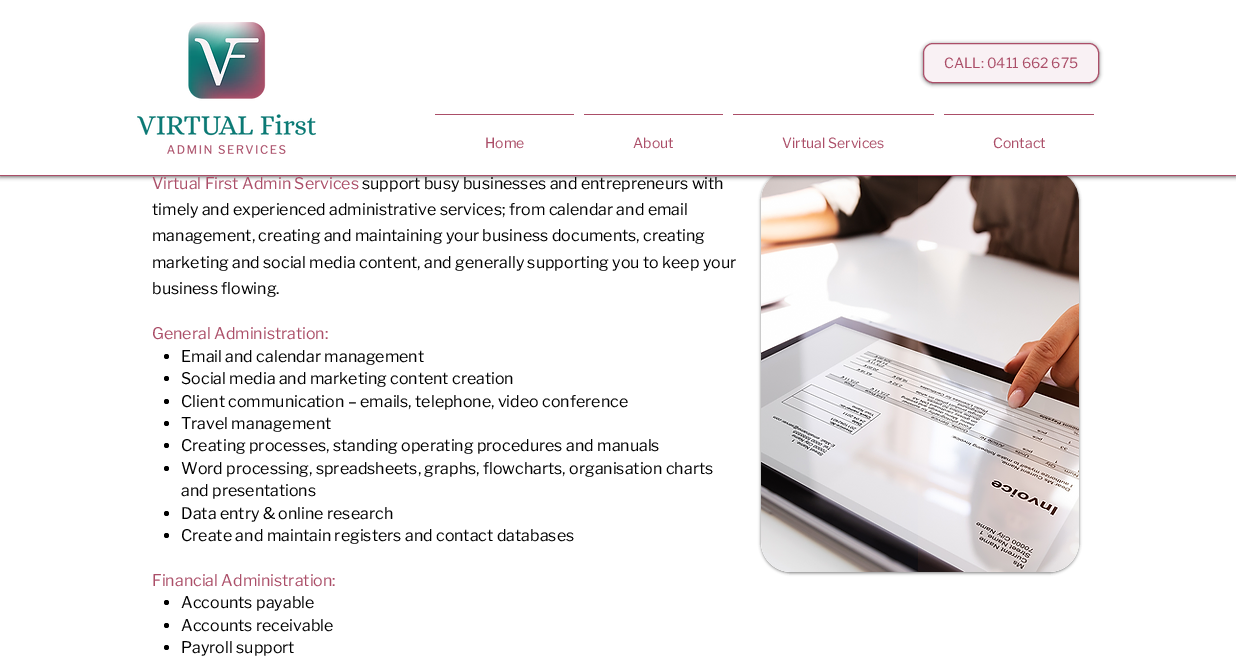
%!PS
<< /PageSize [1236 656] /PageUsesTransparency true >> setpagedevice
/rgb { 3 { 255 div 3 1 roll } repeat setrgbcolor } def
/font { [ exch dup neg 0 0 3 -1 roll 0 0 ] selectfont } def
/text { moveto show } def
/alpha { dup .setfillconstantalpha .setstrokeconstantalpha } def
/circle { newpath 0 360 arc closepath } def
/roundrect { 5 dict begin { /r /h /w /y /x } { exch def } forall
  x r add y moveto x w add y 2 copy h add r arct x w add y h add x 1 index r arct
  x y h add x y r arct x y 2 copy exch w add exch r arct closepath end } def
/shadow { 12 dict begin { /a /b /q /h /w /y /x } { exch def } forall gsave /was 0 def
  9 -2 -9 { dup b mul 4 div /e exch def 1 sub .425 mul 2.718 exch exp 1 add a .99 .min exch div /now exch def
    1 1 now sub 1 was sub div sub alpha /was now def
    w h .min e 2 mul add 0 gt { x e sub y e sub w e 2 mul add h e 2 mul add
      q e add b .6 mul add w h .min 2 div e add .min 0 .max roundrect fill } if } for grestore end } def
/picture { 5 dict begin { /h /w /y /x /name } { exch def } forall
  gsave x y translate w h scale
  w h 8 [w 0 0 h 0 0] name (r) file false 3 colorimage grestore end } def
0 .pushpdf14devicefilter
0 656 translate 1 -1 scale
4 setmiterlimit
255 255 255 rgb
0 0 1236 656 rectfill
0 0 0 rgb
761 171 318 402 30 1.5 0.5 shadow
255 255 255 rgb
761 170 318 402 30 roundrect fill
(img_02.rgb) 761 176 318 396 picture
0 0 0 rgb
0 1 1236 176 0 2 0.6 shadow
171 78 104 rgb
0 175 1236 1 rectfill
255 255 255 rgb
0 0 1236 175 rectfill
(img_01.rgb) 137 22 179 132 picture
0 0 0 rgb
923 44 176 40 10 2 0.6 shadow
249 241 244 rgb
923.5 43.5 175 39 9.5 roundrect gsave fill grestore
171 78 104 rgb
stroke
435 114 139 1 rectfill
584 114 139 1 rectfill
733 114 201 1 rectfill
944 114 150 1 rectfill
0 0 0 rgb
166.5 356.5 2.5 circle fill
166.5 378.5 2.5 circle fill
166.5 401.5 2.5 circle fill
166.5 423.5 2.5 circle fill
166.5 445.5 2.5 circle fill
166.5 468.5 2.5 circle fill
166.5 513.5 2.5 circle fill
166.5 535.5 2.5 circle fill
166.5 602.5 2.5 circle fill
166.5 625.5 2.5 circle fill
166.5 647.5 2.5 circle fill
/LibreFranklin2-Regular 14 font
171 78 104 rgb
(CALL: 0411 662 675) 944 68 text
(Home) 485 148 text
(About) 633 148 text
(Virtual Services) 782 148 text
(Contact) 993 148 text
/LibreFranklin-Regular 16 font
(Virtual First Admin Services) 152 189 text
0 0 0 rgb
(support busy businesses and entrepreneurs with) 362 189 text
(timely and experienced administrative services; from calendar and email) 152 215 text
(management, creating and maintaining your business documents, creating) 152 241 text
(marketing and social media content, and generally supporting you to keep your) 152 268 text
(business flowing.) 152 294 text
171 78 104 rgb
(General Administration:) 152 339 text
0 0 0 rgb
(Email and calendar management) 181 362 text
(Social media and marketing content creation) 181 384 text
(Client communication – emails, telephone, video conference) 181 407 text
(Travel management) 181 429 text
(Creating processes, standing operating procedures and manuals) 181 451 text
(Word processing, spreadsheets, graphs, flowcharts, organisation charts) 181 474 text
(and presentations) 181 496 text
(Data entry & online research) 181 519 text
(Create and maintain registers and contact databases) 181 541 text
171 78 104 rgb
(Financial Administration:) 152 586 text
0 0 0 rgb
(Accounts payable) 181 608 text
(Accounts receivable) 181 631 text
(Payroll support) 181 653 text
.poppdf14devicefilter showpage
